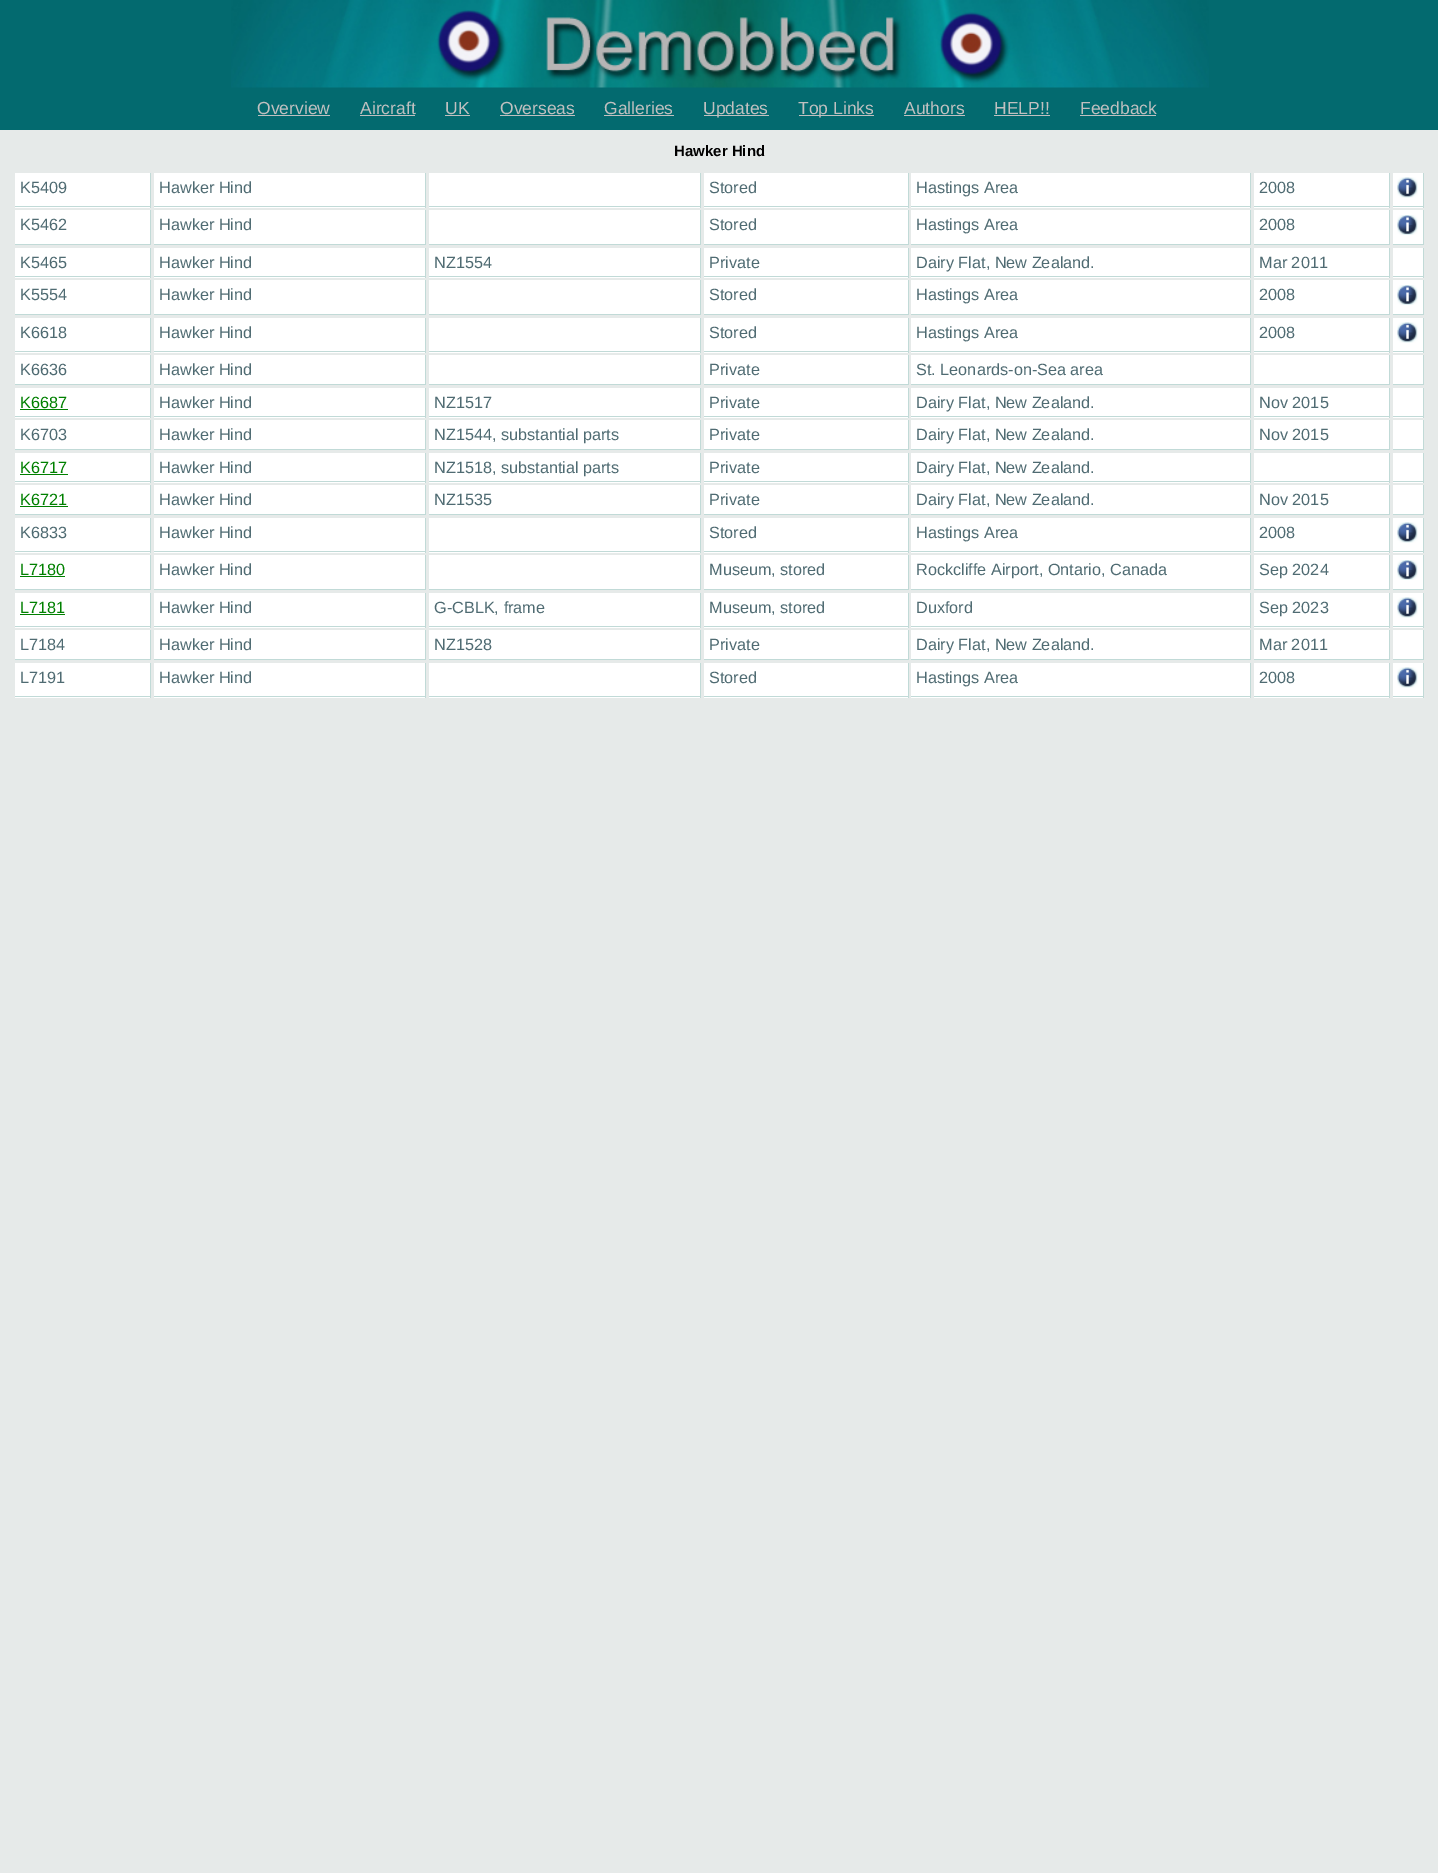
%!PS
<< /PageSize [1438 1873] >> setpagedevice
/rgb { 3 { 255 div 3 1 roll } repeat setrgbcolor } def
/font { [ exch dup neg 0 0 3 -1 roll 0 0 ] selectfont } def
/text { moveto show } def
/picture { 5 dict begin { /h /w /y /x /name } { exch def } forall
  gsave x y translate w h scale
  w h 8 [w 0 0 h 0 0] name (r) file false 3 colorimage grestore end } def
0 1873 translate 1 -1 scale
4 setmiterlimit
230 234 233 rgb
0 0 1438 1873 rectfill
3 106 111 rgb
0 0 1438 130 rectfill
(img_01.rgb) 231 0 978 88 picture
192 192 192 rgb
258 115 72 1 rectfill
360 115 55 1 rectfill
445 115 25 1 rectfill
500 115 75 1 rectfill
604 115 70 1 rectfill
704 115 65 1 rectfill
799 115 75 1 rectfill
904 115 61 1 rectfill
994 115 56 1 rectfill
1080 115 76 1 rectfill
255 255 255 rgb
15 173 135 35 rectfill
193 218 215 rgb
150 173 1 35 rectfill
15 206 136 1 rectfill
255 255 255 rgb
154 173 271 35 rectfill
193 218 215 rgb
425 173 1 35 rectfill
154 206 272 1 rectfill
255 255 255 rgb
429 173 271 35 rectfill
193 218 215 rgb
700 173 1 35 rectfill
429 206 272 1 rectfill
255 255 255 rgb
704 173 204 35 rectfill
193 218 215 rgb
908 173 1 35 rectfill
704 206 205 1 rectfill
255 255 255 rgb
911 173 339 35 rectfill
193 218 215 rgb
1250 173 1 35 rectfill
911 206 340 1 rectfill
255 255 255 rgb
1254 173 135 35 rectfill
193 218 215 rgb
1389 173 1 35 rectfill
1254 206 136 1 rectfill
255 255 255 rgb
1393 173 30 35 rectfill
193 218 215 rgb
1423 173 1 35 rectfill
1393 206 31 1 rectfill
(img_02.rgb) 1397 177 21 21 picture
255 255 255 rgb
15 210 135 34 rectfill
193 218 215 rgb
150 210 1 35 rectfill
15 244 136 1 rectfill
255 255 255 rgb
154 210 271 34 rectfill
193 218 215 rgb
425 210 1 35 rectfill
154 244 272 1 rectfill
255 255 255 rgb
429 210 271 34 rectfill
193 218 215 rgb
700 210 1 35 rectfill
429 244 272 1 rectfill
255 255 255 rgb
704 210 204 34 rectfill
193 218 215 rgb
908 210 1 35 rectfill
704 244 205 1 rectfill
255 255 255 rgb
911 210 339 34 rectfill
193 218 215 rgb
1250 210 1 35 rectfill
911 244 340 1 rectfill
255 255 255 rgb
1254 210 135 34 rectfill
193 218 215 rgb
1389 210 1 35 rectfill
1254 244 136 1 rectfill
255 255 255 rgb
1393 210 30 34 rectfill
193 218 215 rgb
1423 210 1 35 rectfill
1393 244 31 1 rectfill
(img_03.rgb) 1397 215 21 20 picture
255 255 255 rgb
15 248 135 30 rectfill
193 218 215 rgb
150 248 1 30 rectfill
15 276 136 1 rectfill
255 255 255 rgb
154 248 271 30 rectfill
193 218 215 rgb
425 248 1 30 rectfill
154 276 272 1 rectfill
255 255 255 rgb
429 248 271 30 rectfill
193 218 215 rgb
700 248 1 30 rectfill
429 276 272 1 rectfill
255 255 255 rgb
704 248 204 30 rectfill
193 218 215 rgb
908 248 1 30 rectfill
704 276 205 1 rectfill
255 255 255 rgb
911 248 339 30 rectfill
193 218 215 rgb
1250 248 1 30 rectfill
911 276 340 1 rectfill
255 255 255 rgb
1254 248 135 30 rectfill
193 218 215 rgb
1389 248 1 30 rectfill
1254 276 136 1 rectfill
255 255 255 rgb
1393 248 30 30 rectfill
193 218 215 rgb
1423 248 1 30 rectfill
1393 276 31 1 rectfill
255 255 255 rgb
15 280 135 34 rectfill
193 218 215 rgb
150 280 1 35 rectfill
15 314 136 1 rectfill
255 255 255 rgb
154 280 271 34 rectfill
193 218 215 rgb
425 280 1 35 rectfill
154 314 272 1 rectfill
255 255 255 rgb
429 280 271 34 rectfill
193 218 215 rgb
700 280 1 35 rectfill
429 314 272 1 rectfill
255 255 255 rgb
704 280 204 34 rectfill
193 218 215 rgb
908 280 1 35 rectfill
704 314 205 1 rectfill
255 255 255 rgb
911 280 339 34 rectfill
193 218 215 rgb
1250 280 1 35 rectfill
911 314 340 1 rectfill
255 255 255 rgb
1254 280 135 34 rectfill
193 218 215 rgb
1389 280 1 35 rectfill
1254 314 136 1 rectfill
255 255 255 rgb
1393 280 30 34 rectfill
193 218 215 rgb
1423 280 1 35 rectfill
1393 314 31 1 rectfill
(img_04.rgb) 1397 285 21 20 picture
255 255 255 rgb
15 318 135 35 rectfill
193 218 215 rgb
150 318 1 35 rectfill
15 351 136 1 rectfill
255 255 255 rgb
154 318 271 35 rectfill
193 218 215 rgb
425 318 1 35 rectfill
154 351 272 1 rectfill
255 255 255 rgb
429 318 271 35 rectfill
193 218 215 rgb
700 318 1 35 rectfill
429 351 272 1 rectfill
255 255 255 rgb
704 318 204 35 rectfill
193 218 215 rgb
908 318 1 35 rectfill
704 351 205 1 rectfill
255 255 255 rgb
911 318 339 35 rectfill
193 218 215 rgb
1250 318 1 35 rectfill
911 351 340 1 rectfill
255 255 255 rgb
1254 318 135 35 rectfill
193 218 215 rgb
1389 318 1 35 rectfill
1254 351 136 1 rectfill
255 255 255 rgb
1393 318 30 35 rectfill
193 218 215 rgb
1423 318 1 35 rectfill
1393 351 31 1 rectfill
(img_02.rgb) 1397 322 21 21 picture
255 255 255 rgb
15 355 135 29 rectfill
193 218 215 rgb
150 355 1 30 rectfill
15 384 136 1 rectfill
255 255 255 rgb
154 355 271 29 rectfill
193 218 215 rgb
425 355 1 30 rectfill
154 384 272 1 rectfill
255 255 255 rgb
429 355 271 29 rectfill
193 218 215 rgb
700 355 1 30 rectfill
429 384 272 1 rectfill
255 255 255 rgb
704 355 204 29 rectfill
193 218 215 rgb
908 355 1 30 rectfill
704 384 205 1 rectfill
255 255 255 rgb
911 355 339 29 rectfill
193 218 215 rgb
1250 355 1 30 rectfill
911 384 340 1 rectfill
255 255 255 rgb
1254 355 135 29 rectfill
193 218 215 rgb
1389 355 1 30 rectfill
1254 384 136 1 rectfill
255 255 255 rgb
1393 355 30 29 rectfill
193 218 215 rgb
1423 355 1 30 rectfill
1393 384 31 1 rectfill
255 255 255 rgb
15 388 135 30 rectfill
193 218 215 rgb
150 388 1 30 rectfill
15 416 136 1 rectfill
0 128 0 rgb
20 409 48 1 rectfill
255 255 255 rgb
154 388 271 30 rectfill
193 218 215 rgb
425 388 1 30 rectfill
154 416 272 1 rectfill
255 255 255 rgb
429 388 271 30 rectfill
193 218 215 rgb
700 388 1 30 rectfill
429 416 272 1 rectfill
255 255 255 rgb
704 388 204 30 rectfill
193 218 215 rgb
908 388 1 30 rectfill
704 416 205 1 rectfill
255 255 255 rgb
911 388 339 30 rectfill
193 218 215 rgb
1250 388 1 30 rectfill
911 416 340 1 rectfill
255 255 255 rgb
1254 388 135 30 rectfill
193 218 215 rgb
1389 388 1 30 rectfill
1254 416 136 1 rectfill
255 255 255 rgb
1393 388 30 30 rectfill
193 218 215 rgb
1423 388 1 30 rectfill
1393 416 31 1 rectfill
255 255 255 rgb
15 420 135 29 rectfill
193 218 215 rgb
150 420 1 30 rectfill
15 449 136 1 rectfill
255 255 255 rgb
154 420 271 29 rectfill
193 218 215 rgb
425 420 1 30 rectfill
154 449 272 1 rectfill
255 255 255 rgb
429 420 271 29 rectfill
193 218 215 rgb
700 420 1 30 rectfill
429 449 272 1 rectfill
255 255 255 rgb
704 420 204 29 rectfill
193 218 215 rgb
908 420 1 30 rectfill
704 449 205 1 rectfill
255 255 255 rgb
911 420 339 29 rectfill
193 218 215 rgb
1250 420 1 30 rectfill
911 449 340 1 rectfill
255 255 255 rgb
1254 420 135 29 rectfill
193 218 215 rgb
1389 420 1 30 rectfill
1254 449 136 1 rectfill
255 255 255 rgb
1393 420 30 29 rectfill
193 218 215 rgb
1423 420 1 30 rectfill
1393 449 31 1 rectfill
255 255 255 rgb
15 453 135 30 rectfill
193 218 215 rgb
150 453 1 30 rectfill
15 481 136 1 rectfill
0 128 0 rgb
20 474 48 1 rectfill
255 255 255 rgb
154 453 271 30 rectfill
193 218 215 rgb
425 453 1 30 rectfill
154 481 272 1 rectfill
255 255 255 rgb
429 453 271 30 rectfill
193 218 215 rgb
700 453 1 30 rectfill
429 481 272 1 rectfill
255 255 255 rgb
704 453 204 30 rectfill
193 218 215 rgb
908 453 1 30 rectfill
704 481 205 1 rectfill
255 255 255 rgb
911 453 339 30 rectfill
193 218 215 rgb
1250 453 1 30 rectfill
911 481 340 1 rectfill
255 255 255 rgb
1254 453 135 30 rectfill
193 218 215 rgb
1389 453 1 30 rectfill
1254 481 136 1 rectfill
255 255 255 rgb
1393 453 30 30 rectfill
193 218 215 rgb
1423 453 1 30 rectfill
1393 481 31 1 rectfill
255 255 255 rgb
15 485 135 29 rectfill
193 218 215 rgb
150 485 1 30 rectfill
15 514 136 1 rectfill
0 128 0 rgb
20 506 48 1 rectfill
255 255 255 rgb
154 485 271 29 rectfill
193 218 215 rgb
425 485 1 30 rectfill
154 514 272 1 rectfill
255 255 255 rgb
429 485 271 29 rectfill
193 218 215 rgb
700 485 1 30 rectfill
429 514 272 1 rectfill
255 255 255 rgb
704 485 204 29 rectfill
193 218 215 rgb
908 485 1 30 rectfill
704 514 205 1 rectfill
255 255 255 rgb
911 485 339 29 rectfill
193 218 215 rgb
1250 485 1 30 rectfill
911 514 340 1 rectfill
255 255 255 rgb
1254 485 135 29 rectfill
193 218 215 rgb
1389 485 1 30 rectfill
1254 514 136 1 rectfill
255 255 255 rgb
1393 485 30 29 rectfill
193 218 215 rgb
1423 485 1 30 rectfill
1393 514 31 1 rectfill
255 255 255 rgb
15 518 135 35 rectfill
193 218 215 rgb
150 518 1 35 rectfill
15 551 136 1 rectfill
255 255 255 rgb
154 518 271 35 rectfill
193 218 215 rgb
425 518 1 35 rectfill
154 551 272 1 rectfill
255 255 255 rgb
429 518 271 35 rectfill
193 218 215 rgb
700 518 1 35 rectfill
429 551 272 1 rectfill
255 255 255 rgb
704 518 204 35 rectfill
193 218 215 rgb
908 518 1 35 rectfill
704 551 205 1 rectfill
255 255 255 rgb
911 518 339 35 rectfill
193 218 215 rgb
1250 518 1 35 rectfill
911 551 340 1 rectfill
255 255 255 rgb
1254 518 135 35 rectfill
193 218 215 rgb
1389 518 1 35 rectfill
1254 551 136 1 rectfill
255 255 255 rgb
1393 518 30 35 rectfill
193 218 215 rgb
1423 518 1 35 rectfill
1393 551 31 1 rectfill
(img_02.rgb) 1397 522 21 21 picture
255 255 255 rgb
15 555 135 34 rectfill
193 218 215 rgb
150 555 1 35 rectfill
15 589 136 1 rectfill
0 128 0 rgb
20 576 45 1 rectfill
255 255 255 rgb
154 555 271 34 rectfill
193 218 215 rgb
425 555 1 35 rectfill
154 589 272 1 rectfill
255 255 255 rgb
429 555 271 34 rectfill
193 218 215 rgb
700 555 1 35 rectfill
429 589 272 1 rectfill
255 255 255 rgb
704 555 204 34 rectfill
193 218 215 rgb
908 555 1 35 rectfill
704 589 205 1 rectfill
255 255 255 rgb
911 555 339 34 rectfill
193 218 215 rgb
1250 555 1 35 rectfill
911 589 340 1 rectfill
255 255 255 rgb
1254 555 135 34 rectfill
193 218 215 rgb
1389 555 1 35 rectfill
1254 589 136 1 rectfill
255 255 255 rgb
1393 555 30 34 rectfill
193 218 215 rgb
1423 555 1 35 rectfill
1393 589 31 1 rectfill
(img_03.rgb) 1397 560 21 20 picture
255 255 255 rgb
15 593 135 35 rectfill
193 218 215 rgb
150 593 1 35 rectfill
15 626 136 1 rectfill
0 128 0 rgb
20 614 45 1 rectfill
255 255 255 rgb
154 593 271 35 rectfill
193 218 215 rgb
425 593 1 35 rectfill
154 626 272 1 rectfill
255 255 255 rgb
429 593 271 35 rectfill
193 218 215 rgb
700 593 1 35 rectfill
429 626 272 1 rectfill
255 255 255 rgb
704 593 204 35 rectfill
193 218 215 rgb
908 593 1 35 rectfill
704 626 205 1 rectfill
255 255 255 rgb
911 593 339 35 rectfill
193 218 215 rgb
1250 593 1 35 rectfill
911 626 340 1 rectfill
255 255 255 rgb
1254 593 135 35 rectfill
193 218 215 rgb
1389 593 1 35 rectfill
1254 626 136 1 rectfill
255 255 255 rgb
1393 593 30 35 rectfill
193 218 215 rgb
1423 593 1 35 rectfill
1393 626 31 1 rectfill
(img_02.rgb) 1397 597 21 21 picture
255 255 255 rgb
15 630 135 29 rectfill
193 218 215 rgb
150 630 1 30 rectfill
15 659 136 1 rectfill
255 255 255 rgb
154 630 271 29 rectfill
193 218 215 rgb
425 630 1 30 rectfill
154 659 272 1 rectfill
255 255 255 rgb
429 630 271 29 rectfill
193 218 215 rgb
700 630 1 30 rectfill
429 659 272 1 rectfill
255 255 255 rgb
704 630 204 29 rectfill
193 218 215 rgb
908 630 1 30 rectfill
704 659 205 1 rectfill
255 255 255 rgb
911 630 339 29 rectfill
193 218 215 rgb
1250 630 1 30 rectfill
911 659 340 1 rectfill
255 255 255 rgb
1254 630 135 29 rectfill
193 218 215 rgb
1389 630 1 30 rectfill
1254 659 136 1 rectfill
255 255 255 rgb
1393 630 30 29 rectfill
193 218 215 rgb
1423 630 1 30 rectfill
1393 659 31 1 rectfill
255 255 255 rgb
15 663 135 35 rectfill
193 218 215 rgb
150 663 1 35 rectfill
15 696 136 1 rectfill
255 255 255 rgb
154 663 271 35 rectfill
193 218 215 rgb
425 663 1 35 rectfill
154 696 272 1 rectfill
255 255 255 rgb
429 663 271 35 rectfill
193 218 215 rgb
700 663 1 35 rectfill
429 696 272 1 rectfill
255 255 255 rgb
704 663 204 35 rectfill
193 218 215 rgb
908 663 1 35 rectfill
704 696 205 1 rectfill
255 255 255 rgb
911 663 339 35 rectfill
193 218 215 rgb
1250 663 1 35 rectfill
911 696 340 1 rectfill
255 255 255 rgb
1254 663 135 35 rectfill
193 218 215 rgb
1389 663 1 35 rectfill
1254 696 136 1 rectfill
255 255 255 rgb
1393 663 30 35 rectfill
193 218 215 rgb
1423 663 1 35 rectfill
1393 696 31 1 rectfill
(img_02.rgb) 1397 667 21 21 picture
/LiberationSans-Regular 17.5 font
192 192 192 rgb
(Overview) 257 114 text
(Aircraft) 360 114 text
(UK) 445 114 text
(Overseas) 500 114 text
(Galleries) 604 114 text
(Updates) 703 114 text
(Top Links) 798 114 text
(Authors) 904 114 text
(HELP!!) 994 114 text
(Feedback) 1080 114 text
/LiberationSans-Bold 15 font
0 0 0 rgb
(Hawker Hind) 674 156 text
/LiberationSans-Regular 16.25 font
79 107 114 rgb
(K5409) 20 193 text
(Hawker Hind) 159 193 text
(Stored) 709 193 text
(Hastings Area) 916 193 text
(2008) 1259 193 text
(K5462) 20 230 text
(Hawker Hind) 159 230 text
(Stored) 709 230 text
(Hastings Area) 916 230 text
(2008) 1259 230 text
(K5465) 20 268 text
(Hawker Hind) 159 268 text
(NZ1554) 434 268 text
(Private) 709 268 text
(Dairy Flat, New Zealand.) 916 268 text
(Mar 2011) 1259 268 text
(K5554) 20 300 text
(Hawker Hind) 159 300 text
(Stored) 709 300 text
(Hastings Area) 916 300 text
(2008) 1259 300 text
(K6618) 20 338 text
(Hawker Hind) 159 338 text
(Stored) 709 338 text
(Hastings Area) 916 338 text
(2008) 1259 338 text
(K6636) 20 375 text
(Hawker Hind) 159 375 text
(Private) 709 375 text
(St. Leonards-on-Sea area) 916 375 text
0 128 0 rgb
(K6687) 20 408 text
79 107 114 rgb
(Hawker Hind) 159 408 text
(NZ1517) 434 408 text
(Private) 709 408 text
(Dairy Flat, New Zealand.) 916 408 text
(Nov 2015) 1259 408 text
(K6703) 20 440 text
(Hawker Hind) 159 440 text
(NZ1544, substantial parts) 434 440 text
(Private) 709 440 text
(Dairy Flat, New Zealand.) 916 440 text
(Nov 2015) 1259 440 text
0 128 0 rgb
(K6717) 20 473 text
79 107 114 rgb
(Hawker Hind) 159 473 text
(NZ1518, substantial parts) 434 473 text
(Private) 709 473 text
(Dairy Flat, New Zealand.) 916 473 text
0 128 0 rgb
(K6721) 20 505 text
79 107 114 rgb
(Hawker Hind) 159 505 text
(NZ1535) 434 505 text
(Private) 709 505 text
(Dairy Flat, New Zealand.) 916 505 text
(Nov 2015) 1259 505 text
(K6833) 20 538 text
(Hawker Hind) 159 538 text
(Stored) 709 538 text
(Hastings Area) 916 538 text
(2008) 1259 538 text
0 128 0 rgb
(L7180) 20 575 text
79 107 114 rgb
(Hawker Hind) 159 575 text
(Museum, stored) 709 575 text
(Rockcliffe Airport, Ontario, Canada) 916 575 text
(Sep 2024) 1259 575 text
0 128 0 rgb
(L7181) 20 613 text
79 107 114 rgb
(Hawker Hind) 159 613 text
(G-CBLK, frame) 434 613 text
(Museum, stored) 709 613 text
(Duxford) 916 613 text
(Sep 2023) 1259 613 text
(L7184) 20 650 text
(Hawker Hind) 159 650 text
(NZ1528) 434 650 text
(Private) 709 650 text
(Dairy Flat, New Zealand.) 916 650 text
(Mar 2011) 1259 650 text
(L7191) 20 683 text
(Hawker Hind) 159 683 text
(Stored) 709 683 text
(Hastings Area) 916 683 text
(2008) 1259 683 text
showpage
